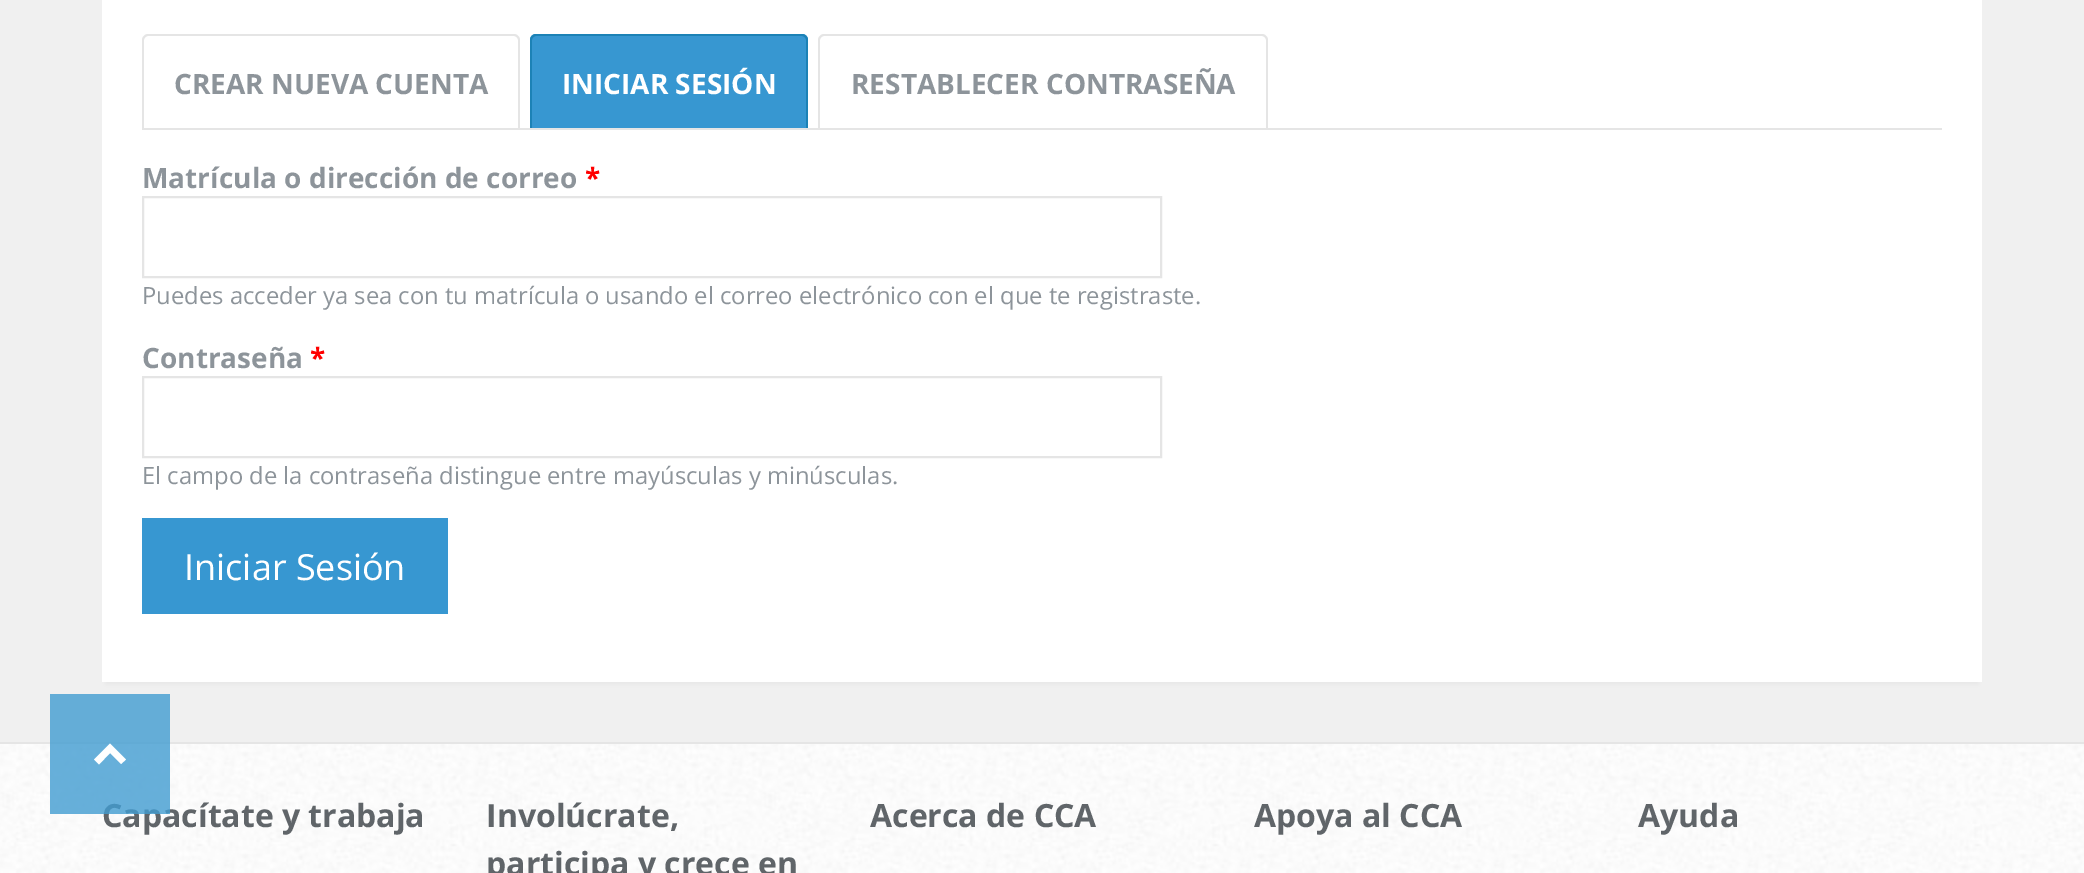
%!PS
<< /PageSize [2084 873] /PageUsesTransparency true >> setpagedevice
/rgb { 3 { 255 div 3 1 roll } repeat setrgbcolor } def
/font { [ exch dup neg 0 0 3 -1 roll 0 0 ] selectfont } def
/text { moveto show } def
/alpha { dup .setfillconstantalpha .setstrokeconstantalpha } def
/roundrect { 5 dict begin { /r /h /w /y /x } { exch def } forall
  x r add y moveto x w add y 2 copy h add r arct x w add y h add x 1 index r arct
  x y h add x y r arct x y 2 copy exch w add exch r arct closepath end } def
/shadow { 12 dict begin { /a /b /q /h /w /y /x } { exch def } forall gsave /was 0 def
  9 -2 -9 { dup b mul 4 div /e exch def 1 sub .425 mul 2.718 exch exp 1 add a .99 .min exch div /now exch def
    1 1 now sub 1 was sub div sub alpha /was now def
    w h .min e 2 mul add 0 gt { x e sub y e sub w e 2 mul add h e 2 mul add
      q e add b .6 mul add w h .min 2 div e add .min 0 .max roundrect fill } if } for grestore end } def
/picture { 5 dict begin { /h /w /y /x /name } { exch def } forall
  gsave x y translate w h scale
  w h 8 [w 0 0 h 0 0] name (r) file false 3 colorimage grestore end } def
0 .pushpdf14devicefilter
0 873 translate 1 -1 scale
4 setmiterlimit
240 240 240 rgb
0 0 2084 873 rectfill
230 230 230 rgb
106 -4 1872 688 0 3 1 shadow
255 255 255 rgb
102 0 1880 682 rectfill
229 229 229 rgb
142 128 1800 2 rectfill
gsave
142 26 1800 102 rectclip
148 34 moveto 366 0 rlineto 3 0 6 3 6 6 rcurveto 0 90 rlineto -378 0 rlineto 0 -90 rlineto 0 -3 3 -6 6 -6 rcurveto closepath 148 36 moveto 366 0 rlineto 2 0 4 2 4 4 rcurveto 0 90 rlineto -374 0 rlineto 0 -90 rlineto 0 -2 2 -4 4 -4 rcurveto closepath eofill
grestore
55 151 209 rgb
536 34 moveto 266 0 rlineto 3.5 0 6 2.5 6 6 rcurveto 0 88 rlineto -278 0 rlineto 0 -88 rlineto 0 -3.5 2.5 -6 6 -6 rcurveto closepath fill
gsave
142 26 1800 102 rectclip
28 130 182 rgb
536 34 moveto 266 0 rlineto 3 0 6 3 6 6 rcurveto 0 90 rlineto -278 0 rlineto 0 -90 rlineto 0 -3 3 -6 6 -6 rcurveto closepath 536 36 moveto 266 0 rlineto 2 0 4 2 4 4 rcurveto 0 90 rlineto -274 0 rlineto 0 -90 rlineto 0 -2 2 -4 4 -4 rcurveto closepath eofill
229 229 229 rgb
824 34 moveto 438 0 rlineto 3 0 6 3 6 6 rcurveto 0 90 rlineto -450 0 rlineto 0 -90 rlineto 0 -3 3 -6 6 -6 rcurveto closepath 824 36 moveto 438 0 rlineto 2 0 4 2 4 4 rcurveto 0 90 rlineto -446 0 rlineto 0 -90 rlineto 0 -2 2 -4 4 -4 rcurveto closepath eofill
grestore
229 229 229 rgb
2 setlinewidth
143 197 1018 80 rectstroke
143 377 1018 80 rectstroke
55 151 209 rgb
142 518 306 96 rectfill
(img_01.rgb) 0 744 2084 129 picture
229 229 229 rgb
0 742 2084 2 rectfill
/OpenSans-Bold 28 font
141 148 154 rgb
(CREAR NUEVA CUENTA) 174 94 text
255 255 255 rgb
(INICIAR SESIÓN) 562 94 text
141 148 154 rgb
(RESTABLECER CONTRASEÑA) 851 94 text
(Matrícula o dirección de correo) 142 188 text
255 0 0 rgb
(*) 585 188 text
/OpenSans-Regular 23.8 font
141 148 154 rgb
(Puedes acceder ya sea con tu matrícula o usando el correo electrónico con el que te registraste.) 142 304 text
/OpenSans-Bold 28 font
(Contraseña) 142 368 text
255 0 0 rgb
(*) 310 368 text
/OpenSans-Regular 23.8 font
141 148 154 rgb
(El campo de la contraseña distingue entre mayúsculas y minúsculas.) 142 484 text
/OpenSans-Regular 36 font
255 255 255 rgb
(Iniciar Sesión) 184 580 text
/OpenSans-Bold 32 font
96 101 105 rgb
(Capacítate y trabaja) 102 827 text
(Involúcrate,) 486 827 text
(participa y crece en) 486 875 text
(Acerca de CCA) 870 827 text
(Apoya al CCA) 1254 827 text
(Ayuda) 1638 827 text
0.8 alpha
65 156 209 rgb
50 694 120 120 rectfill
1 alpha
255 255 255 rgb
110 743.5 moveto 16 16 rlineto -5 4.5 rlineto -11 -11 rlineto -11 11.5 rlineto -5 -5 rlineto closepath fill
.poppdf14devicefilter showpage
